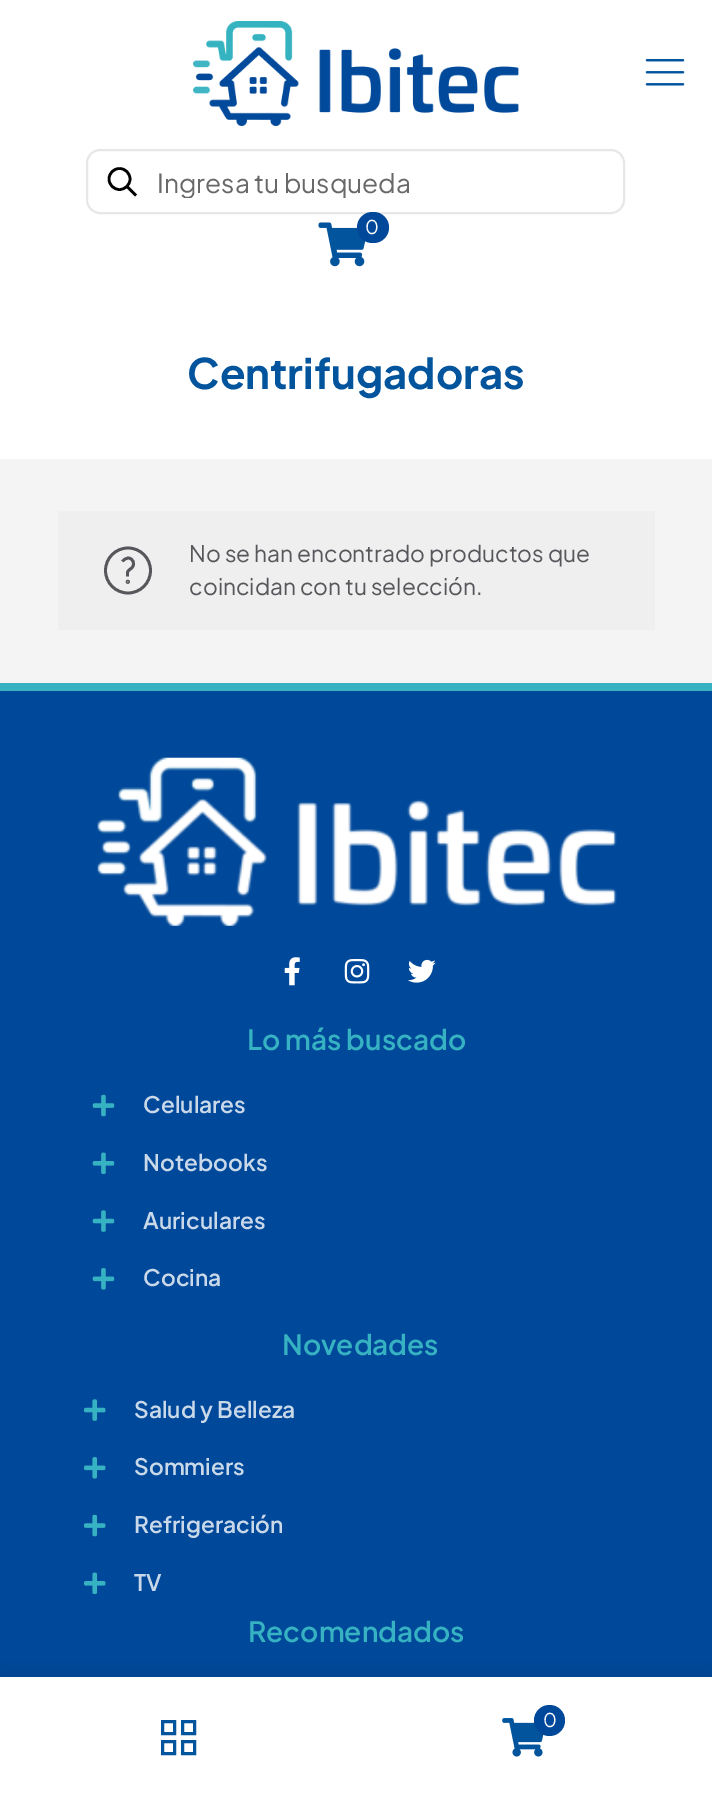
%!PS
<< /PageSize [712 1799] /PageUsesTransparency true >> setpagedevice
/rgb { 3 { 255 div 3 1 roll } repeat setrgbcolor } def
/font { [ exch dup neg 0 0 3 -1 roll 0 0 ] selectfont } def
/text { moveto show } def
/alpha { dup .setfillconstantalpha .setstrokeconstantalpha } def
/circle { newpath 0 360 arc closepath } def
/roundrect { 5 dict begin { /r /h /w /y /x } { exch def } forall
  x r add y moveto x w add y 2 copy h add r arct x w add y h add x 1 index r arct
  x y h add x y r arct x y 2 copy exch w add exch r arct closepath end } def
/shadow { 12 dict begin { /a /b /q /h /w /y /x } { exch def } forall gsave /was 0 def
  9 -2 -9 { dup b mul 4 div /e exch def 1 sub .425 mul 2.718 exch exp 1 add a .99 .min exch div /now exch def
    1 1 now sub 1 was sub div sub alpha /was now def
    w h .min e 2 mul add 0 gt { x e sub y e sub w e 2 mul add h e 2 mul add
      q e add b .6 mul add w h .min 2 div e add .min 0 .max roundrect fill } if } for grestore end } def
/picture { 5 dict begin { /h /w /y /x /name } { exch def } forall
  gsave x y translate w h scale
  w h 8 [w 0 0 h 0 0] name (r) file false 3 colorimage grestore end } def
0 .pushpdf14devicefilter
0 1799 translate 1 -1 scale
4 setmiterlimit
244 244 244 rgb
0 0 712 1799 rectfill
255 255 255 rgb
0 0 712 459 rectfill
(img_01.rgb) 193 21 326 105 picture
(img_02.rgb) 645 59 40 27 picture
231 231 231 rgb
2 setlinewidth
87 150 537 63 13 roundrect stroke
0 0 0 rgb
2.6 setlinewidth
119.5 179 10.5 circle stroke
127 186.5 moveto 9 9 rlineto stroke
(img_03.rgb) 318 222 48 45 picture
0 72 153 rgb
357 212 32 31 15.5 roundrect fill
239 239 239 rgb
58 511 597 119 rectfill
87 87 91 rgb
2.8 setlinewidth
128 570.5 22.5 circle stroke
122.5 561.5 moveto 1 -2 3.5 -3 5.5 -3.5 rcurveto 5 0 7.5 6 4 9.5 rcurveto -1 1.5 -4.5 3 -4.5 5 rcurveto 0 4 rlineto stroke
127.8 581.8 0.6 circle stroke
0 72 153 rgb
0 691 712 986 rectfill
54 178 194 rgb
0 683 712 8 rectfill
(img_04.rgb) 97 757 520 169 picture
(img_05.rgb) 284 957 16 29 picture
(img_06.rgb) 344 958 26 26 picture
(img_07.rgb) 408 959 28 24 picture
(img_08.rgb) 92 1094 23 23 picture
(img_09.rgb) 92 1152 23 22 picture
(img_10.rgb) 92 1210 23 22 picture
(img_11.rgb) 92 1268 23 22 picture
(img_12.rgb) 84 1399 22 22 picture
(img_13.rgb) 84 1457 22 22 picture
(img_14.rgb) 84 1514 22 23 picture
(img_15.rgb) 84 1572 22 22 picture
0 0 0 rgb
0 1677 712 122 0 9 0.1 shadow
255 255 255 rgb
0 1677 712 122 rectfill
2 84 156 rgb
3 setlinewidth
182.5 1721.5 12 12 rectstroke
162.5 1721.5 12 12 rectstroke
162.5 1741.5 12 12 rectstroke
182.5 1741.5 12 12 rectstroke
(img_16.rgb) 502 1718 42 39 picture
0 72 153 rgb
549.5 1720.5 15.5 circle fill
gsave
158 165 451 33 rectclip
/PlusJakartaSans-Regular 26.25 font
104 104 104 rgb
(Ingresa tu busqueda) 157 193 text
grestore
/PlusJakartaSans-Regular 19 font
255 255 255 rgb
(0) 365 234 text
/PlusJakartaSans-Bold 42 font
2 84 156 rgb
(Centrifugadoras) 187 389 text
/PlusJakartaSans-Regular 22.75 font
87 87 91 rgb
(No se han encontrado productos que) 189 562 text
(coincidan con tu selección.) 189 595 text
/PlusJakartaSans-SemiBold 28 font
54 178 194 rgb
(Lo más buscado) 247 1050 text
/PlusJakartaSans-SemiBold 22.75 font
201 217 234 rgb
(Celulares) 143 1113 text
(Notebooks) 143 1171 text
(Auriculares) 143 1229 text
(Cocina) 143 1286 text
/PlusJakartaSans-SemiBold 28 font
54 178 194 rgb
(Novedades) 282 1355 text
/PlusJakartaSans-SemiBold 22.75 font
201 217 234 rgb
(Salud y Belleza) 134 1418 text
(Sommiers) 134 1475 text
(Refrigeración) 134 1533 text
(TV) 134 1591 text
/PlusJakartaSans-SemiBold 28 font
54 178 194 rgb
(Recomendados) 248 1642 text
/PlusJakartaSans-Regular 19 font
255 255 255 rgb
(0) 543 1727 text
.poppdf14devicefilter showpage
